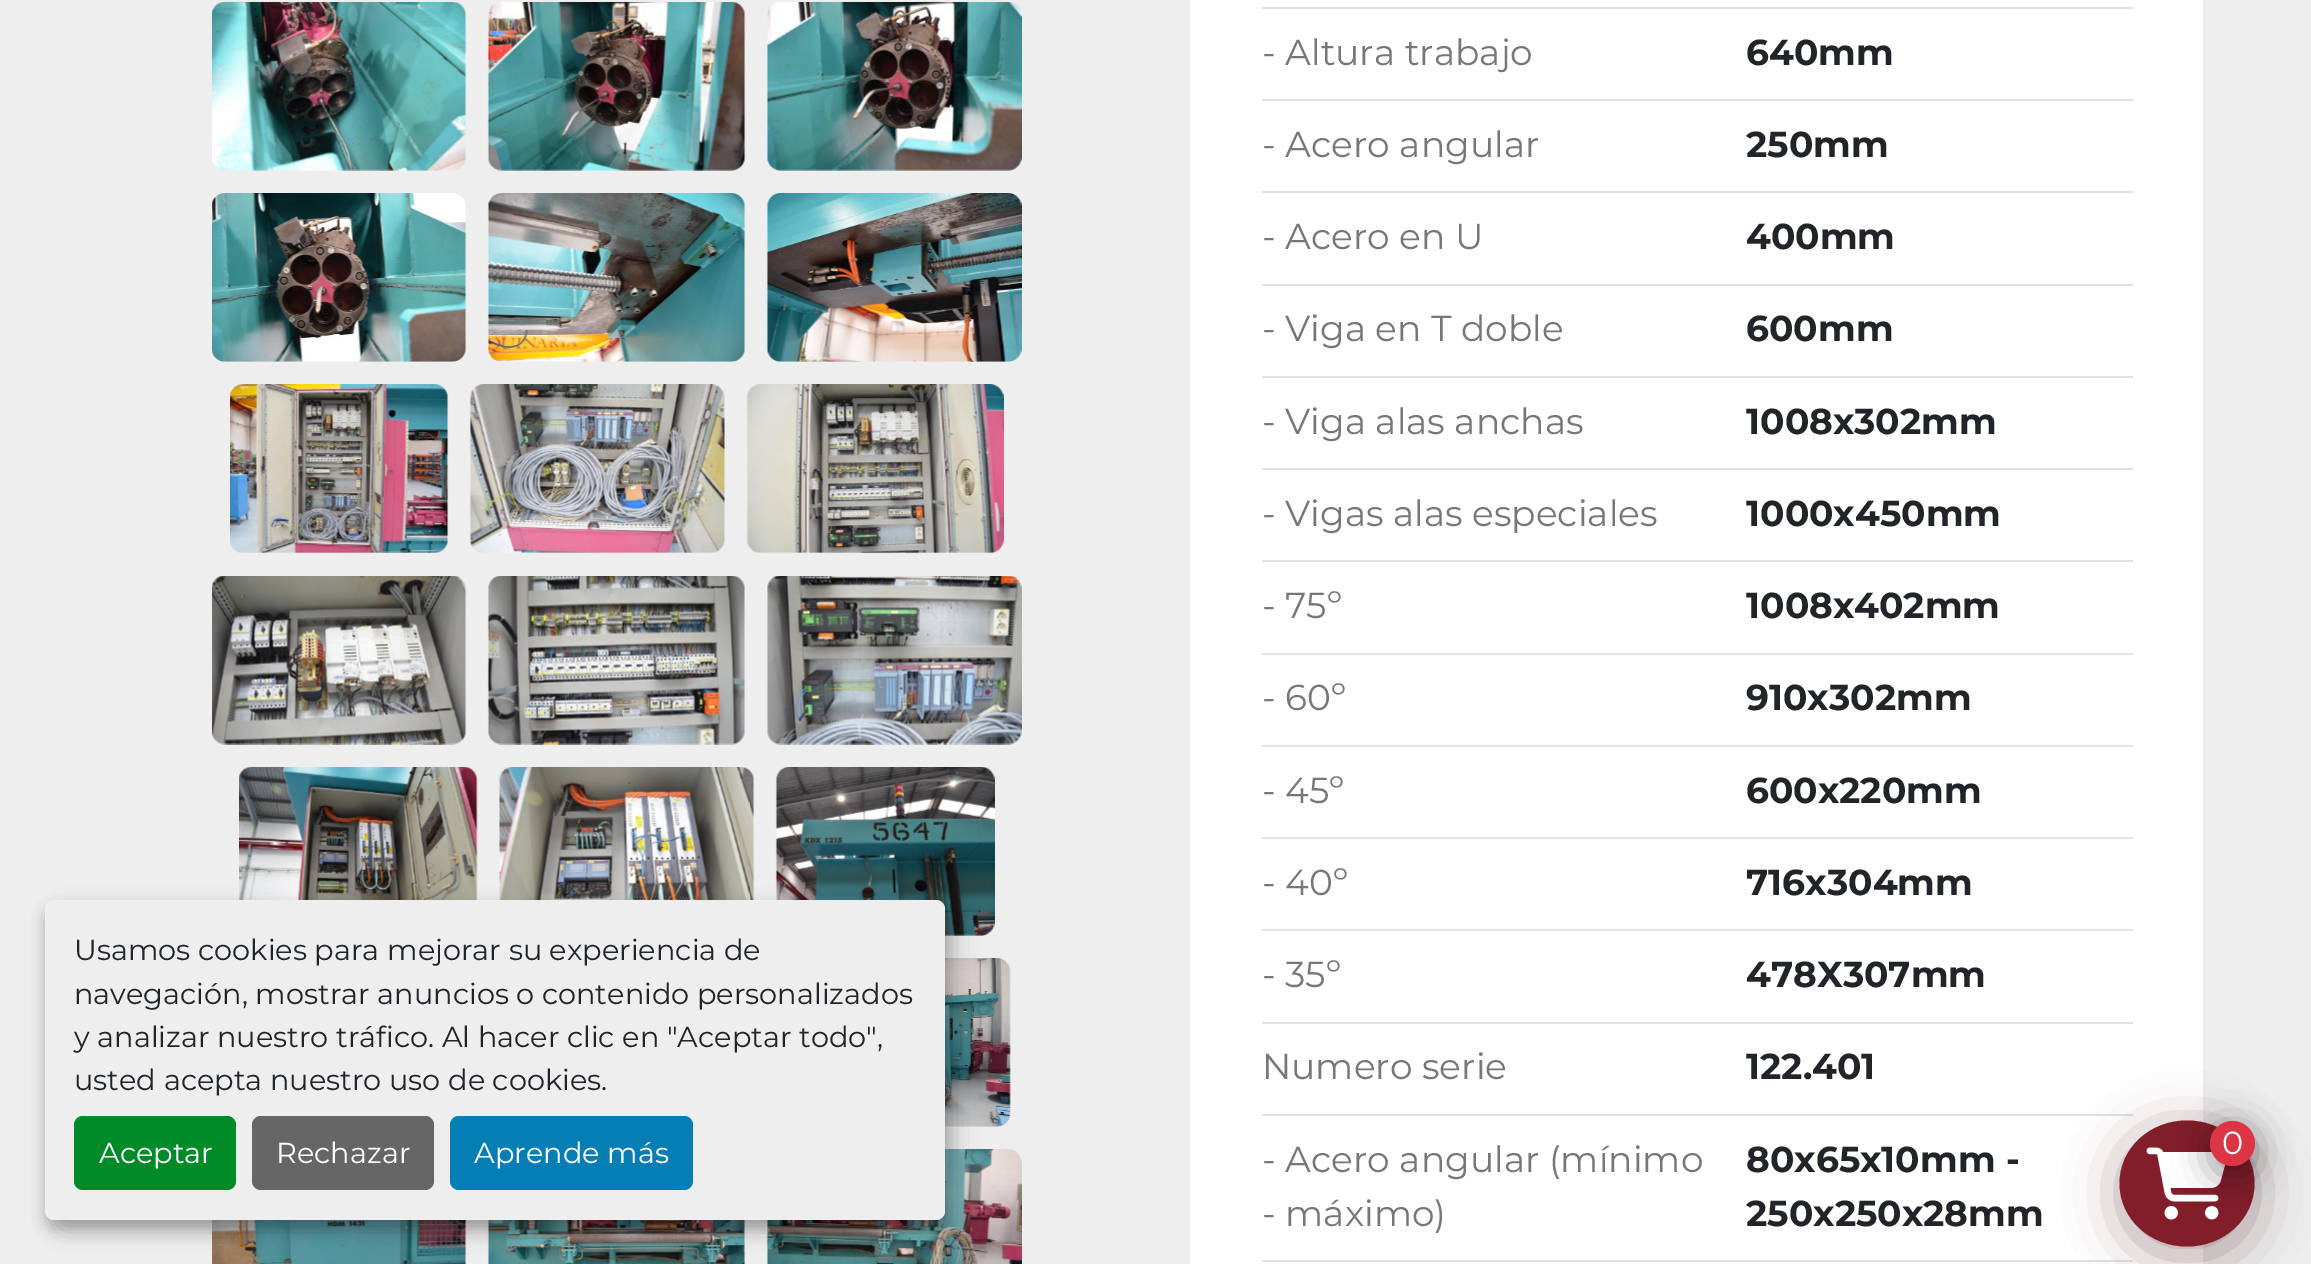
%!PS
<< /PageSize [2311 1264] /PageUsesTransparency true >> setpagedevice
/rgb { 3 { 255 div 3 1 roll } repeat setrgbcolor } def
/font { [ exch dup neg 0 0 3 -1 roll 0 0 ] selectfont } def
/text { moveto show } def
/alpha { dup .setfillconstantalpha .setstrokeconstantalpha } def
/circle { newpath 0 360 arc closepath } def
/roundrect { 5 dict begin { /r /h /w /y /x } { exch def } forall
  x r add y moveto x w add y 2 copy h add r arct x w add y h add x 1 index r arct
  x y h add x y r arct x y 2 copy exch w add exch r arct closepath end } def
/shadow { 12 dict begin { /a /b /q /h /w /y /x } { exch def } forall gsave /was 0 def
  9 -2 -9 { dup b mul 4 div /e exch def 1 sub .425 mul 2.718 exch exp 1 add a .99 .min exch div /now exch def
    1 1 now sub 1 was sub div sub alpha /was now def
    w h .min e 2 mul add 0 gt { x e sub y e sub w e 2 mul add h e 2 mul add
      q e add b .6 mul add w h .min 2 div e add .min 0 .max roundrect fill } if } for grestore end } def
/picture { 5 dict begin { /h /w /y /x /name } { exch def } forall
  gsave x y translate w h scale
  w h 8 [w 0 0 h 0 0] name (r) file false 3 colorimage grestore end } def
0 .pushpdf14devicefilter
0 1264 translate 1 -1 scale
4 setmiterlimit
238 238 238 rgb
0 0 2311 1264 rectfill
(img_13.rgb) 239 767 239 133 picture
(img_14.rgb) 499 767 256 133 picture
(img_15.rgb) 775 767 220 169 picture
(img_16.rgb) 945 958 66 169 picture
(img_17.rgb) 212 1220 255 44 picture
(img_18.rgb) 487 1220 259 44 picture
(img_19.rgb) 766 1149 256 115 picture
0 0 0 rgb
56 911 900 320 9 11 0.19 shadow
45 909 900 320 9 7 0.2 shadow
238 238 238 rgb
45 900 900 320 9 roundrect fill
0 138 40 rgb
74 1116 162 74 9 roundrect fill
102 102 102 rgb
252 1116 182 74 9 roundrect fill
5 126 182 rgb
450 1116 243 74 9 roundrect fill
(img_01.rgb) 212 2 255 169 picture
(img_02.rgb) 487 2 259 169 picture
(img_03.rgb) 766 2 256 169 picture
(img_04.rgb) 212 193 255 169 picture
(img_05.rgb) 487 193 259 169 picture
(img_06.rgb) 766 193 256 169 picture
(img_07.rgb) 230 384 219 169 picture
(img_08.rgb) 469 384 256 169 picture
(img_09.rgb) 746 384 258 169 picture
(img_10.rgb) 212 576 255 169 picture
(img_11.rgb) 487 576 258 169 picture
(img_12.rgb) 767 576 255 169 picture
255 255 255 rgb
1190 0 1013 1264 rectfill
222 226 230 rgb
1262 7 871 2 rectfill
1262 99 871 2 rectfill
1262 191 871 2 rectfill
1262 284 871 2 rectfill
1262 376 871 2 rectfill
1262 468 871 2 rectfill
1262 560 871 2 rectfill
1262 653 871 2 rectfill
1262 745 871 2 rectfill
1262 837 871 2 rectfill
1262 929 871 2 rectfill
1262 1022 871 2 rectfill
1262 1114 871 2 rectfill
1262 1260 871 2 rectfill
67 15 22 rgb
2120 1130 135 126 63 27 0.4 shadow
130 29 42 rgb
2187 1120.5 moveto 37.5 0 67.5 28 67.5 63 rcurveto 0 35 -30 63 -67.5 63 rcurveto -37.5 0 -67.5 -28 -67.5 -63 rcurveto 0 -35 30 -63 67.5 -63 rcurveto closepath fill
(img_20.rgb) 2146 1147 80 73 picture
0 0 0 rgb
2210 1130 45 45 22.5 18 0.4 shadow
220 53 69 rgb
2232.5 1143.5 22.5 circle fill
/Montserrat-Thin 28.8 font
33 37 41 rgb
(Usamos cookies para mejorar su experiencia de) 74 960 text
(navegación, mostrar anuncios o contenido personalizados) 74 1004 text
(y analizar nuestro tráfico. Al hacer clic en "Aceptar todo",) 74 1047 text
(usted acepta nuestro uso de cookies.) 74 1090 text
255 255 255 rgb
(Aceptar) 99 1163 text
(Rechazar) 276 1163 text
(Aprende más) 474 1163 text
/Montserrat-Thin 36 font
119 119 119 rgb
(- Altura trabajo) 1262 65 text
/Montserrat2-Thin 36 font
33 37 41 rgb
(640mm) 1746 65 text
/Montserrat-Thin 36 font
119 119 119 rgb
(- Acero angular) 1262 157 text
/Montserrat2-Thin 36 font
33 37 41 rgb
(250mm) 1746 157 text
/Montserrat-Thin 36 font
119 119 119 rgb
(- Acero en U) 1262 249 text
/Montserrat2-Thin 36 font
33 37 41 rgb
(400mm) 1746 249 text
/Montserrat-Thin 36 font
119 119 119 rgb
(- Viga en T doble) 1262 341 text
/Montserrat2-Thin 36 font
33 37 41 rgb
(600mm) 1746 341 text
/Montserrat-Thin 36 font
119 119 119 rgb
(- Viga alas anchas) 1262 434 text
/Montserrat2-Thin 36 font
33 37 41 rgb
(1008x302mm) 1746 434 text
/Montserrat-Thin 36 font
119 119 119 rgb
(- Vigas alas especiales) 1262 526 text
/Montserrat2-Thin 36 font
33 37 41 rgb
(1000x450mm) 1746 526 text
/Montserrat-Thin 36 font
119 119 119 rgb
(- 75º) 1262 618 text
/Montserrat2-Thin 36 font
33 37 41 rgb
(1008x402mm) 1746 618 text
/Montserrat-Thin 36 font
119 119 119 rgb
(- 60º) 1262 710 text
/Montserrat2-Thin 36 font
33 37 41 rgb
(910x302mm) 1746 710 text
/Montserrat-Thin 36 font
119 119 119 rgb
(- 45º) 1262 803 text
/Montserrat2-Thin 36 font
33 37 41 rgb
(600x220mm) 1746 803 text
/Montserrat-Thin 36 font
119 119 119 rgb
(- 40º) 1262 895 text
/Montserrat2-Thin 36 font
33 37 41 rgb
(716x304mm) 1746 895 text
/Montserrat-Thin 36 font
119 119 119 rgb
(- 35º) 1262 987 text
/Montserrat2-Thin 36 font
33 37 41 rgb
(478X307mm) 1746 987 text
/Montserrat-Thin 36 font
119 119 119 rgb
(Numero serie) 1262 1079 text
/Montserrat2-Thin 36 font
33 37 41 rgb
(122.401) 1746 1079 text
/Montserrat-Thin 36 font
119 119 119 rgb
(- Acero angular \(mínimo) 1262 1172 text
(- máximo\)) 1262 1226 text
/Montserrat2-Thin 36 font
33 37 41 rgb
(80x65x10mm -) 1746 1172 text
(250x250x28mm) 1746 1226 text
/Montserrat-Thin 32 font
255 255 255 rgb
(0) 2222 1154 text
.poppdf14devicefilter showpage
